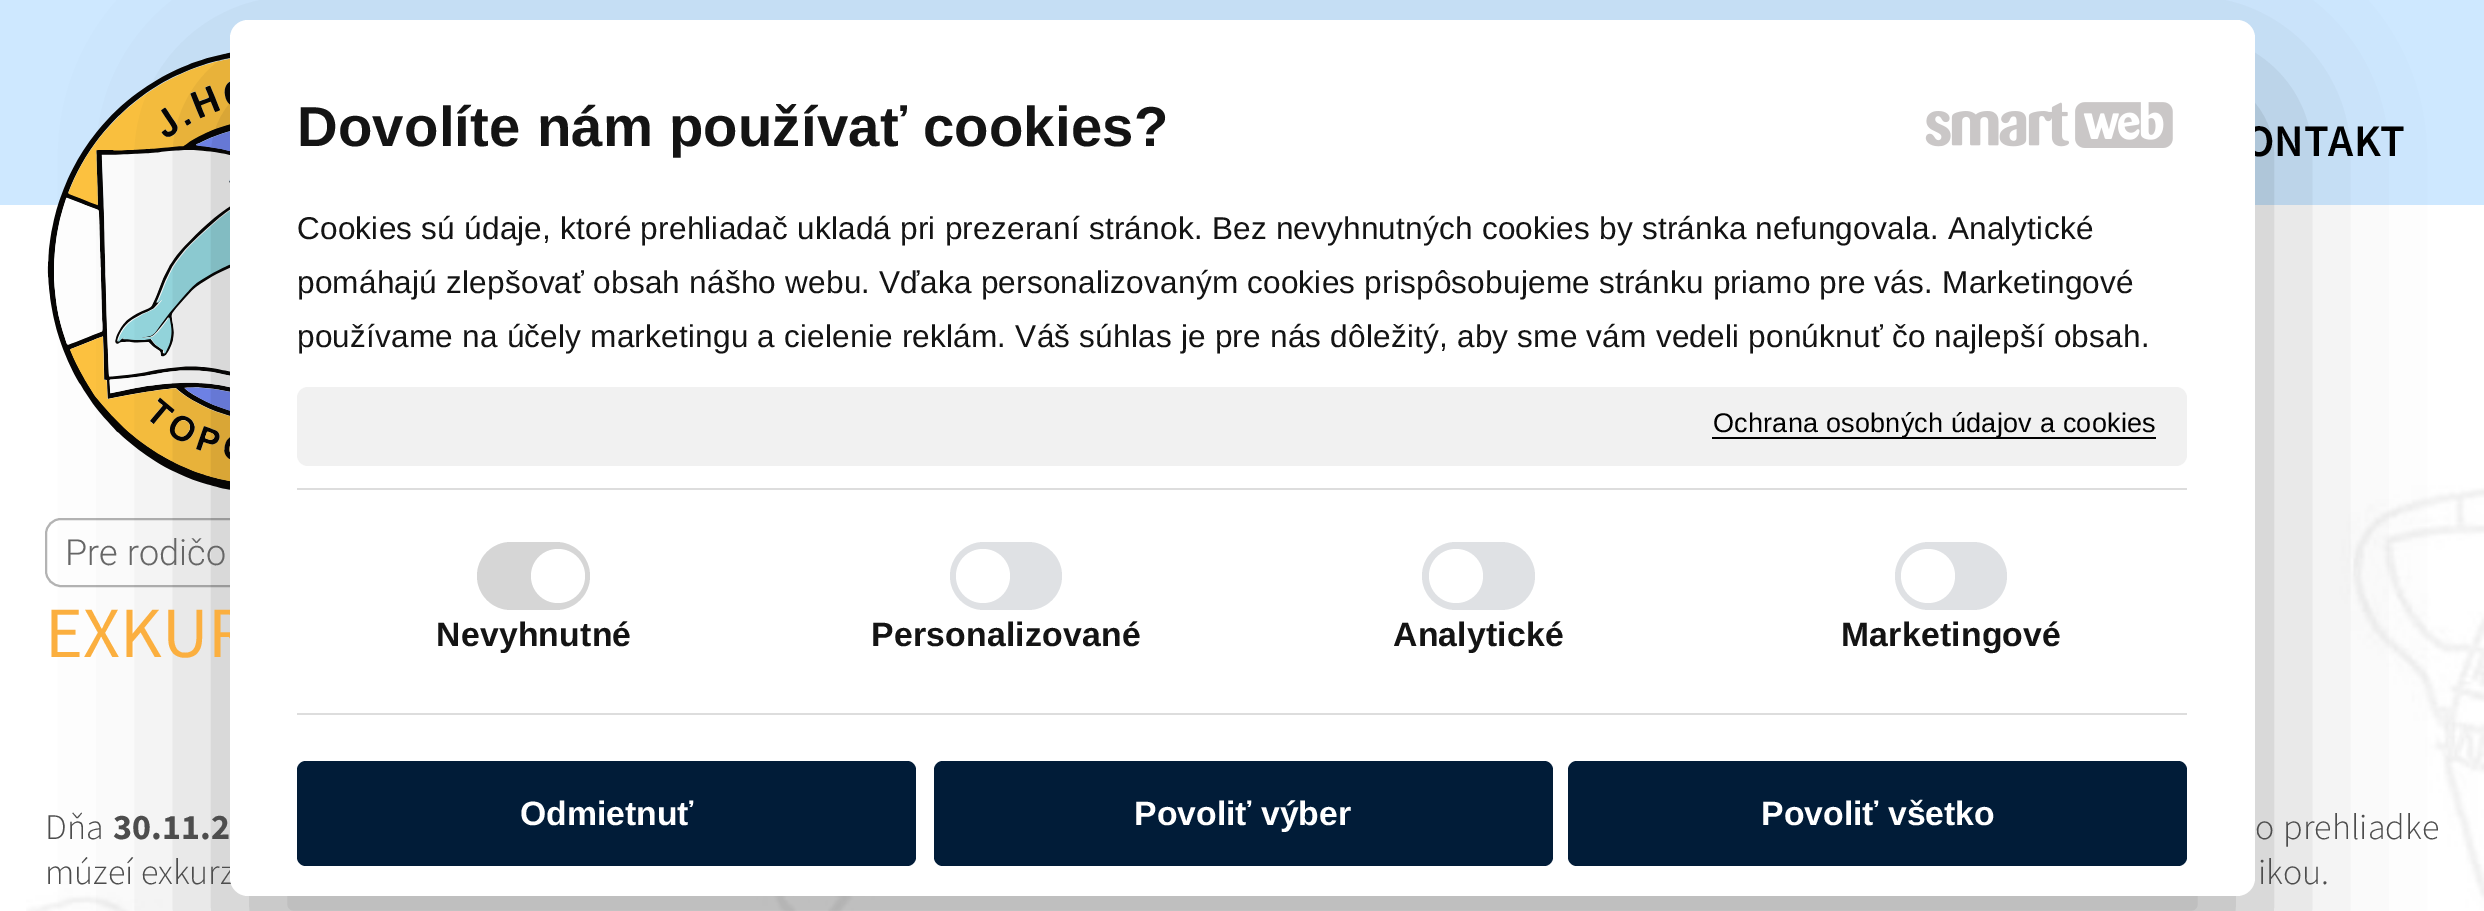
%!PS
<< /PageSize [2484 911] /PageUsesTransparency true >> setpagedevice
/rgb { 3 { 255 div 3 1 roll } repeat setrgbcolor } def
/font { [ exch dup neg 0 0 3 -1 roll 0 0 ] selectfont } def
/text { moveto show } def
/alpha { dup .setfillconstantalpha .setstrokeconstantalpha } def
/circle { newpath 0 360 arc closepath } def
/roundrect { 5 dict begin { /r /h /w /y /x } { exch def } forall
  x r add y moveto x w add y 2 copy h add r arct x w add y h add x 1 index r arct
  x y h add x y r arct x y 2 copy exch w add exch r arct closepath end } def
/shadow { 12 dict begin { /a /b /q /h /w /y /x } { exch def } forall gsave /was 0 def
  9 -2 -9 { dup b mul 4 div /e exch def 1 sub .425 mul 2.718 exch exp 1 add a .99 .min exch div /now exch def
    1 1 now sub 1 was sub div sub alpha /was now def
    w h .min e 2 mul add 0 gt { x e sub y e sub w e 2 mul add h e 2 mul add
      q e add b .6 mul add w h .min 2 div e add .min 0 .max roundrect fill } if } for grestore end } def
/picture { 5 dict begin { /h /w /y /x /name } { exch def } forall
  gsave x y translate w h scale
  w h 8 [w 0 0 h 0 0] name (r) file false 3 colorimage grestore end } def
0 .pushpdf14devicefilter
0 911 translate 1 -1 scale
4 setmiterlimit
255 255 255 rgb
0 0 2484 911 rectfill
(img_01.rgb) 26 237 2458 674 picture
206 232 255 rgb
0 0 2484 205 rectfill
(img_04.rgb) 47 52 183 438 picture
179 179 179 rgb
2 setlinewidth
46 519 216 67 15 roundrect stroke
0 0 0 rgb
230 92 2025 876 18 76.5 0.3 shadow
/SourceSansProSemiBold-SemiBold 45 font
(ONTAKT) 2244 156 text
/Roboto-Light 36 font
102 102 102 rgb
(Pre rodičo) 65 565 text
/SourceSansPro-Regular 72 font
251 175 63 rgb
(EXKUR) 45 657 text
/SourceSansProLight-Light 36 font
77 77 77 rgb
(Dňa) 45 839 text
/SourceSansPro-Bold 36 font
(30.11.2) 113 839 text
/SourceSansProLight-Light 36 font
2255 839 moveto 2 0 32 (o prehliadke) widthshow
(múzeí exkurz) 45 884 text
255 255 255 rgb
230 20 2025 876 18 roundrect fill
223 225 228 rgb
1895 542 112 68 34 roundrect fill
255 255 255 rgb
1928 576 27 circle fill
223 225 228 rgb
1422 542 113 68 34 roundrect fill
255 255 255 rgb
1456 576 27 circle fill
223 225 228 rgb
950 542 112 68 34 roundrect fill
255 255 255 rgb
983 576 27 circle fill
214 214 214 rgb
477 542 113 68 34 roundrect fill
255 255 255 rgb
558 576 27 circle fill
241 241 241 rgb
297 387 1890 79 11 roundrect fill
0 0 0 rgb
1712 437 444 2 rectfill
/LiberationSans-Regular 27 font
1713 432 moveto 0.23 0 (Ochrana osobných údajov a cookies) ashow
/LiberationSans-Regular 31.5 font
20 20 20 rgb
297 347 moveto 0.23 0 (používame na účely marketingu a cielenie reklám. Váš súhlas je pre nás dôležitý, aby sme vám vedeli ponúknuť čo najlepší obsah.) ashow
297 293 moveto 0.23 0 (pomáhajú zlepšovať obsah nášho webu. Vďaka personalizovaným cookies prispôsobujeme stránku priamo pre vás. Marketingové) ashow
297 239 moveto 0.23 0 (Cookies sú údaje, ktoré prehliadač ukladá pri prezeraní stránok. Bez nevyhnutných cookies by stránka nefungovala. Analytické) ashow
(img_03.rgb) 2075 102 98 46 picture
(img_02.rgb) 1925 102 144 45 picture
/LiberationSans-Bold 56.25 font
297 146 moveto 0.23 0 (Dovolíte nám používať cookies?) ashow
1 28 56 rgb
1568 761 619 105 9 roundrect fill
/LiberationSans-Bold 33.75 font
255 255 255 rgb
(Povoliť všetko) 1761 825 text
1 28 56 rgb
934 761 619 105 9 roundrect fill
255 255 255 rgb
(Povoliť výber) 1134 825 text
1 28 56 rgb
297 761 619 105 9 roundrect fill
255 255 255 rgb
(Odmietnuť) 520 825 text
20 20 20 rgb
1841 646 moveto 0.23 0 (Marketingové) ashow
1393 646 moveto 0.23 0 (Analytické) ashow
871 646 moveto 0.23 0 (Personalizované) ashow
436 646 moveto 0.23 0 (Nevyhnutné) ashow
221 221 221 rgb
297 713 1890 2 rectfill
297 488 1890 2 rectfill
/SourceSansProLight-Light 36 font
77 77 77 rgb
(ikou.) 2258 884 text
.poppdf14devicefilter showpage
